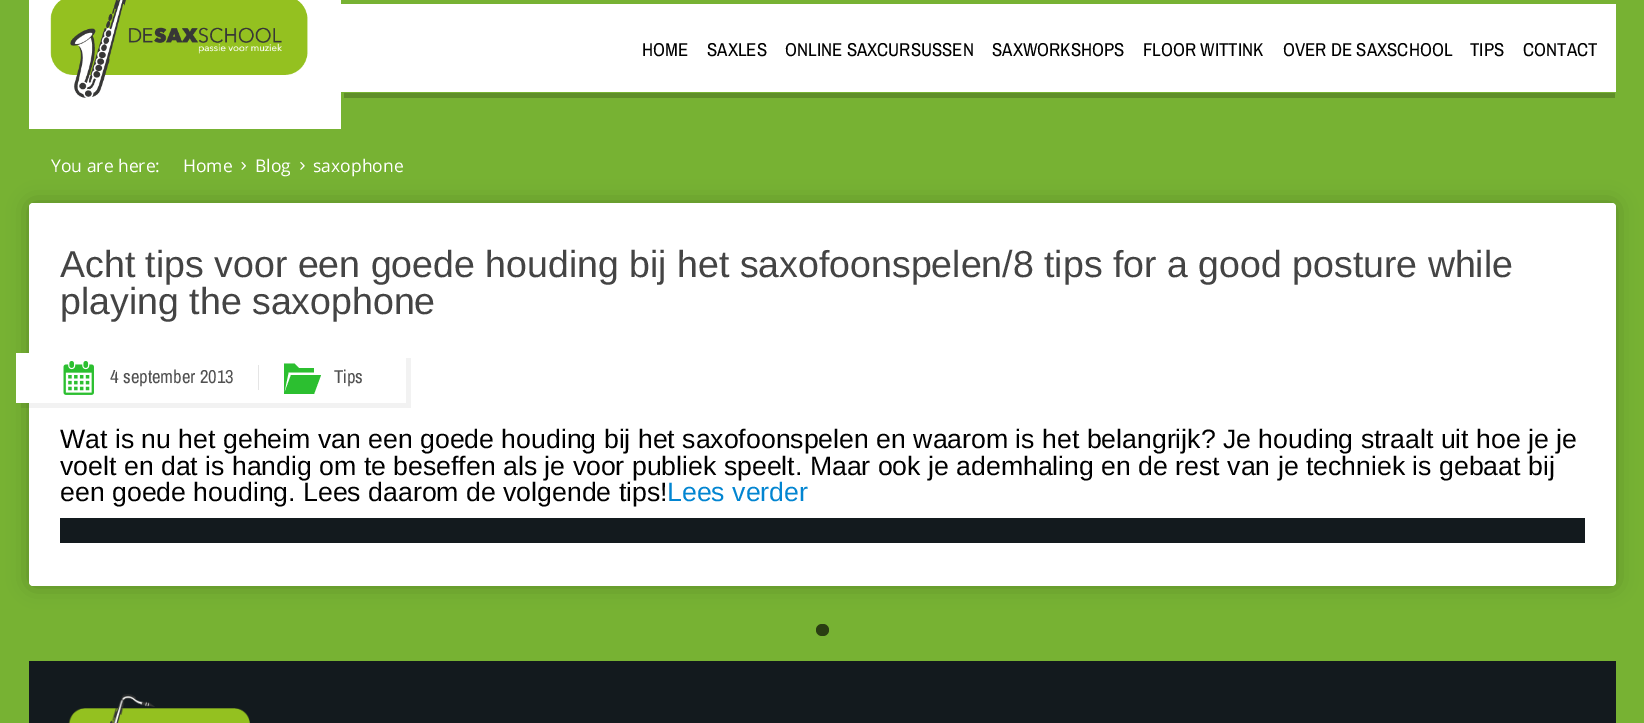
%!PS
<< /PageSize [1644 723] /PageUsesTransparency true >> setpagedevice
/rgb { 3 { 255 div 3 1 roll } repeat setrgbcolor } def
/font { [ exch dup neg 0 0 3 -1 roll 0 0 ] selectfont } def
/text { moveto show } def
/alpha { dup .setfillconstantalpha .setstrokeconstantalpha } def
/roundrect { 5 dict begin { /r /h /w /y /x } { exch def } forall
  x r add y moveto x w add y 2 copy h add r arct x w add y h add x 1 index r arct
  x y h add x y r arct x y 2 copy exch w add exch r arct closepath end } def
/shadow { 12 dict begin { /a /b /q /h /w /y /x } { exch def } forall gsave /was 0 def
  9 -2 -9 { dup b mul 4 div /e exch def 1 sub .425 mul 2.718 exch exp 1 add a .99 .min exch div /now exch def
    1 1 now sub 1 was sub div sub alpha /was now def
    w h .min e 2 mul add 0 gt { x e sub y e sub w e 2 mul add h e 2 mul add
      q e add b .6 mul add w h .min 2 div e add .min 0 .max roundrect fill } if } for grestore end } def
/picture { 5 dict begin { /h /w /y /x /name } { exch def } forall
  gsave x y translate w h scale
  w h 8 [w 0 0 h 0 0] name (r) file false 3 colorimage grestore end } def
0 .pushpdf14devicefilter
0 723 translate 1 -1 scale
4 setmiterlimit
119 178 51 rgb
0 0 1644 723 rectfill
255 255 255 rgb
29 0 312 129 rectfill
(img_01.rgb) 50 0 258 98 picture
341 4 1275 88 rectfill
95 142 41 rgb
344 93 1271 5 rectfill
(img_02.rgb) 241 161 5 9 picture
(img_03.rgb) 300 161 5 9 picture
0 0 0 rgb
29 203 1587 383 4 10.5 0.23 shadow
255 255 255 rgb
29 203 1587 383 4 roundrect fill
0.05 alpha
0 0 0 rgb
21 402 moveto 0 6 rlineto 390 0 rlineto 0 -50 rlineto -5 0 rlineto 0 44 rlineto closepath fill
1 alpha
255 255 255 rgb
16 353 390 50 rectfill
(img_04.rgb) 63 361 31 34 picture
229 229 229 rgb
258 365 1 25 rectfill
44 191 48 rgb
314 394 moveto 7 -19 rlineto -30 0 rlineto -7 19 rlineto closepath 288.5 372.5 moveto -4.5 21.5 rlineto 0 -30.5 rlineto 10.5 0 rlineto 4.5 4.5 rlineto 15 0 rlineto 0 4.5 rlineto closepath fill
19 26 30 rgb
60 518 1525 25 rectfill
42 62 18 rgb
816 624 13 12 6 roundrect fill
19 26 30 rgb
29 661 1587 62 rectfill
(img_05.rgb) 68 694 182 29 picture
/ArchivoNarrow-Regular 18.75 font
0 0 0 rgb
(HOME) 642 56 text
(SAXLES) 707 56 text
(ONLINE SAXCURSUSSEN) 785 56 text
(SAXWORKSHOPS) 992 56 text
(FLOOR WITTINK) 1143 56 text
(OVER DE SAXSCHOOL) 1283 56 text
(TIPS) 1470 56 text
(CONTACT) 1523 56 text
/OpenSans-Regular 17.5 font
255 255 255 rgb
(You are here:) 51 172 text
(Home) 183 172 text
(Blog) 255 172 text
(saxophone) 313 172 text
/LiberationSans-Regular 37.5 font
68 68 68 rgb
(Acht tips voor een goede houding bij het saxofoonspelen/8 tips for a good posture while) 60 277 text
(playing the saxophone) 60 314 text
/ArchivoNarrow-Regular 18.75 font
81 81 81 rgb
(4 september 2013) 110 383 text
(Tips) 334 383 text
/LiberationSans-Regular 26.65 font
0 0 0 rgb
(Wat is nu het geheim van een goede houding bij het saxofoonspelen en waarom is het belangrijk? Je houding straalt uit hoe je je) 60 448 text
(voelt en dat is handig om te beseffen als je voor publiek speelt. Maar ook je ademhaling en de rest van je techniek is gebaat bij) 60 475 text
(een goede houding. Lees daarom de volgende tips!) 60 501 text
2 133 209 rgb
(Lees verder) 667 501 text
.poppdf14devicefilter showpage
